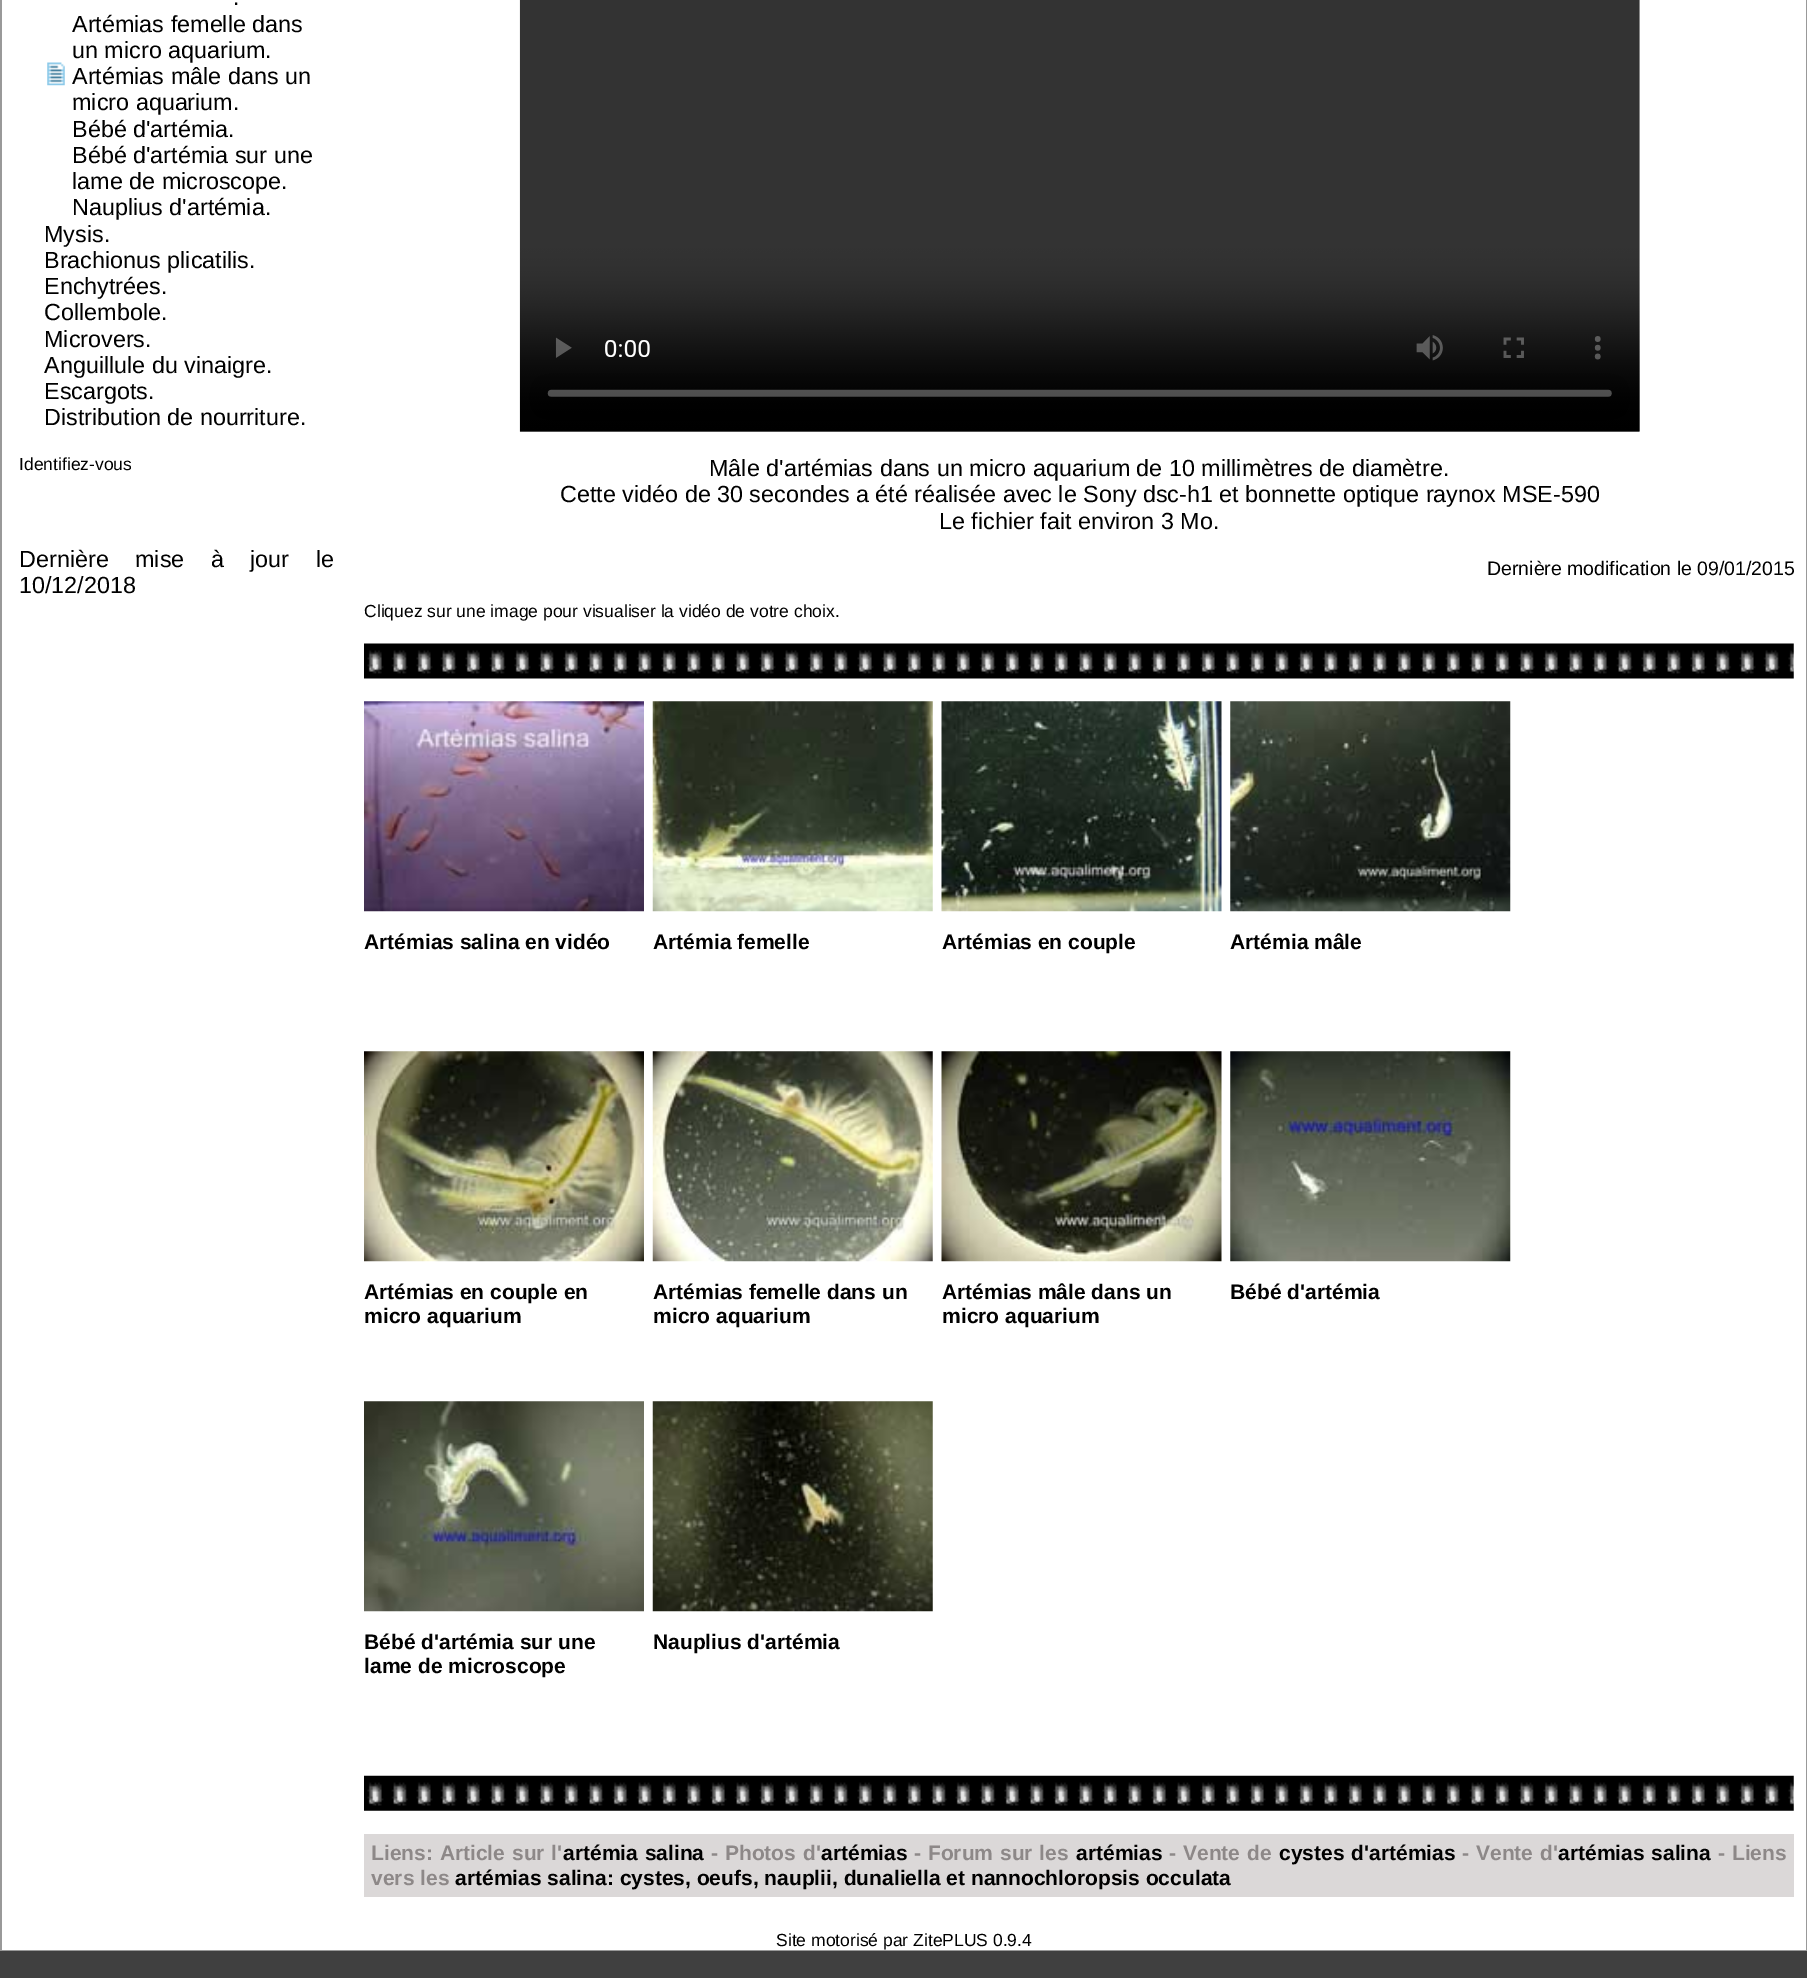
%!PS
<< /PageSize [1807 1978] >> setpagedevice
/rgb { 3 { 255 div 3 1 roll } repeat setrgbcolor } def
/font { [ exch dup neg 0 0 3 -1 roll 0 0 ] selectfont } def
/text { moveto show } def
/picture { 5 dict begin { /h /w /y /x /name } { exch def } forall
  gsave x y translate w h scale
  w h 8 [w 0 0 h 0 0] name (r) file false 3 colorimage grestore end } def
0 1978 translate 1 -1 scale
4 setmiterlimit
64 64 64 rgb
0 0 1807 1978 rectfill
255 255 255 rgb
2 0 1804 1950 rectfill
153 153 153 rgb
1806 0 1 1951 rectfill
0 0 2 1951 rectfill
(img_01.rgb) 47 62 18 24 picture
(img_02.rgb) 519 0 1121 432 picture
(img_03.rgb) 364 643 1430 36 picture
(img_04.rgb) 364 701 280 211 picture
(img_05.rgb) 652 701 281 211 picture
(img_06.rgb) 941 701 281 211 picture
(img_07.rgb) 1230 701 281 211 picture
(img_08.rgb) 364 1051 280 211 picture
(img_09.rgb) 652 1051 281 211 picture
(img_10.rgb) 941 1051 281 211 picture
(img_11.rgb) 1230 1051 281 211 picture
(img_12.rgb) 364 1401 280 211 picture
(img_13.rgb) 652 1401 281 211 picture
(img_14.rgb) 364 1775 1430 36 picture
219 216 216 rgb
364 1834 1430 63 rectfill
153 153 153 rgb
2 1950 1804 1 rectfill
/LiberationSans-Regular 23.35 font
0 0 0 rgb
(.) 233 5 text
(Artémias femelle dans) 72 32 text
(un micro aquarium.) 72 58 text
(Artémias mâle dans un) 72 84 text
(micro aquarium.) 72 110 text
(Bébé d'artémia.) 72 137 text
(Bébé d'artémia sur une) 72 163 text
(lame de microscope.) 72 189 text
(Nauplius d'artémia.) 72 215 text
(Mysis.) 44 242 text
(Brachionus plicatilis.) 44 268 text
(Enchytrées.) 44 294 text
(Collembole.) 44 320 text
(Microvers.) 44 347 text
(Anguillule du vinaigre.) 44 373 text
(Escargots.) 44 399 text
(Distribution de nourriture.) 44 425 text
/LiberationSans-Regular 17.5 font
(Identifiez-vous) 19 470 text
/LiberationSans-Regular 23.35 font
19 567 moveto 20 0 32 (Dernière mise à jour le) widthshow
(10/12/2018) 19 593 text
(Mâle d'artémias dans un micro aquarium de 10 millimètres de diamètre.) 709 476 text
(Cette vidéo de 30 secondes a été réalisée avec le Sony dsc-h1 et bonnette optique raynox MSE-590) 560 502 text
(Le fichier fait environ 3 Mo.) 939 529 text
/LiberationSans-Regular 19.5 font
(Dernière modification le 09/01/2015) 1487 575 text
/LiberationSans-Regular 17.5 font
(Cliquez sur une image pour visualiser la vidéo de votre choix.) 364 617 text
/LiberationSans-Bold 21 font
(Artémias salina en vidéo) 364 949 text
(Artémia femelle) 653 949 text
(Artémias en couple) 942 949 text
(Artémia mâle) 1230 949 text
(Artémias en couple en) 364 1299 text
(micro aquarium) 364 1323 text
(Artémias femelle dans un) 653 1299 text
(micro aquarium) 653 1323 text
(Artémias mâle dans un) 942 1299 text
(micro aquarium) 942 1323 text
(Bébé d'artémia) 1230 1299 text
(Bébé d'artémia sur une) 364 1649 text
(lame de microscope) 364 1673 text
(Nauplius d'artémia) 653 1649 text
141 136 136 rgb
371 1860 moveto 1 0 32 (Liens: Article sur l') widthshow
0 0 0 rgb
563 1860 moveto 1 0 32 (artémia salina) widthshow
141 136 136 rgb
711 1860 moveto 1 0 32 (- Photos d') widthshow
0 0 0 rgb
(artémias) 821 1860 text
141 136 136 rgb
914 1860 moveto 1 0 32 (- Forum sur les) widthshow
0 0 0 rgb
(artémias) 1076 1860 text
141 136 136 rgb
1169 1860 moveto 1 0 32 (- Vente de) widthshow
0 0 0 rgb
1279 1860 moveto 1 0 32 (cystes d'artémias) widthshow
141 136 136 rgb
1462 1860 moveto 1 0 32 (- Vente d') widthshow
0 0 0 rgb
1558 1860 moveto 1 0 32 (artémias salina) widthshow
141 136 136 rgb
1718 1860 moveto 1 0 32 (- Liens) widthshow
(vers les) 371 1885 text
0 0 0 rgb
(artémias salina: cystes, oeufs, nauplii, dunaliella et nannochloropsis occulata) 455 1885 text
/LiberationSans-Regular 17.5 font
(Site motorisé par ZitePLUS 0.9.4) 776 1946 text
showpage
